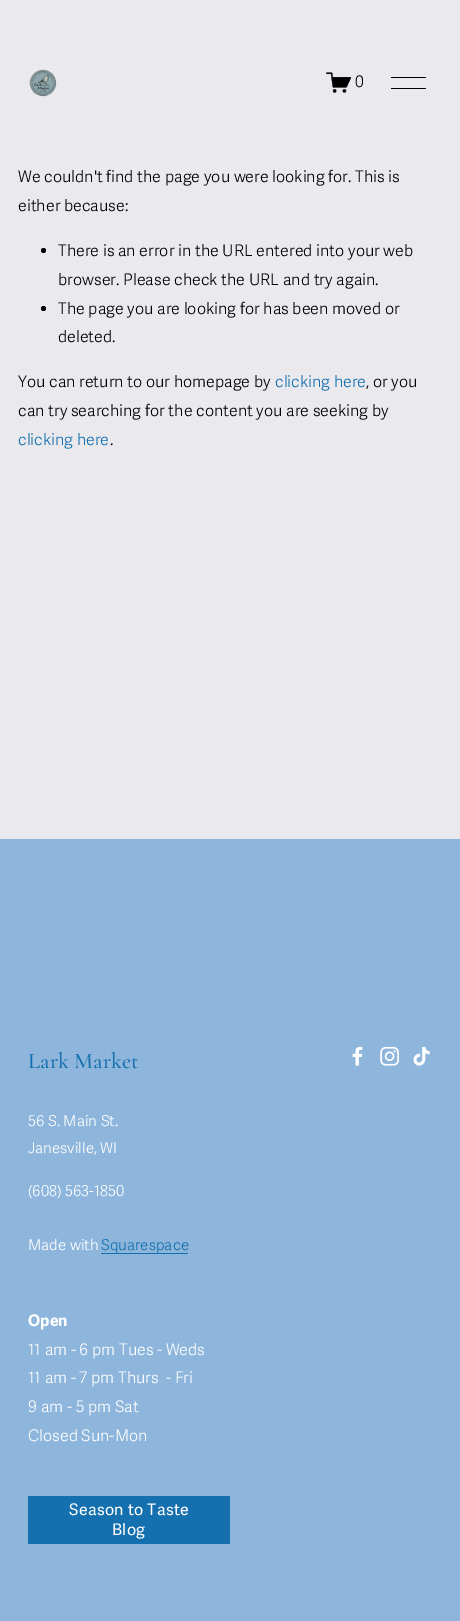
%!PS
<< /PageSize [460 1621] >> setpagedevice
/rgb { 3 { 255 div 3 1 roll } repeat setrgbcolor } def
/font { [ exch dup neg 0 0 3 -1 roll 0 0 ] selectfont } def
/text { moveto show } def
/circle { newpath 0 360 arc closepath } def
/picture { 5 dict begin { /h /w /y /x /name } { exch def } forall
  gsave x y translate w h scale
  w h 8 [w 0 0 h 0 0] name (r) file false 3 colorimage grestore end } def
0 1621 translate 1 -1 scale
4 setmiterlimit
234 234 238 rgb
0 0 460 1621 rectfill
(img_01.rgb) 29 69 28 28 picture
(img_02.rgb) 326 72 25 21 picture
0 0 0 rgb
391 77 35 1 rectfill
391 88 35 1 rectfill
43.5 250.5 2.5 circle fill
43.5 308.5 2.5 circle fill
142 182 220 rgb
0 839 460 782 rectfill
20 112 175 rgb
101 1253 87 1 rectfill
(img_03.rgb) 352 1046 11 20 picture
(img_04.rgb) 380 1046 19 20 picture
(img_05.rgb) 413 1046 17 20 picture
28 1496 202 48 rectfill
/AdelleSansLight-Light 16 font
0 0 0 rgb
(0) 355 87 text
(We couldn't find the page you were looking for. This is) 18 182 text
(either because:) 18 211 text
(There is an error in the URL entered into your web) 58 256 text
(browser. Please check the URL and try again.) 58 285 text
(The page you are looking for has been moved or) 58 314 text
(deleted.) 58 342 text
(You can return to our homepage by) 18 387 text
20 112 175 rgb
(clicking here) 275 387 text
0 0 0 rgb
(, or you) 366 387 text
(can try searching for the content you are seeking by) 18 416 text
20 112 175 rgb
(clicking here) 18 445 text
0 0 0 rgb
(.) 110 445 text
/CormorantGaramond-Medium 22.5 font
20 112 175 rgb
(Lark Market) 28 1068 text
/AdelleSansLight-Light 15 font
255 255 255 rgb
(56 S. Main St.) 28 1126 text
(Janesville, WI) 28 1153 text
(\(608\) 563-1850) 28 1196 text
(Made with) 28 1250 text
20 112 175 rgb
(Squarespace) 101 1250 text
/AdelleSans-Bold 16 font
255 255 255 rgb
(Open) 28 1326 text
/AdelleSansLight-Light 16 font
(11 am - 6 pm Tues - Weds) 28 1355 text
(11 am - 7 pm Thurs  - Fri) 28 1383 text
(9 am - 5 pm Sat) 28 1412 text
(Closed Sun-Mon) 28 1441 text
/AdelleSans-Regular 16 font
69 1515 moveto 0.3 0 (Season to Taste) ashow
112 1535 moveto 0.3 0 (Blog) ashow
showpage
